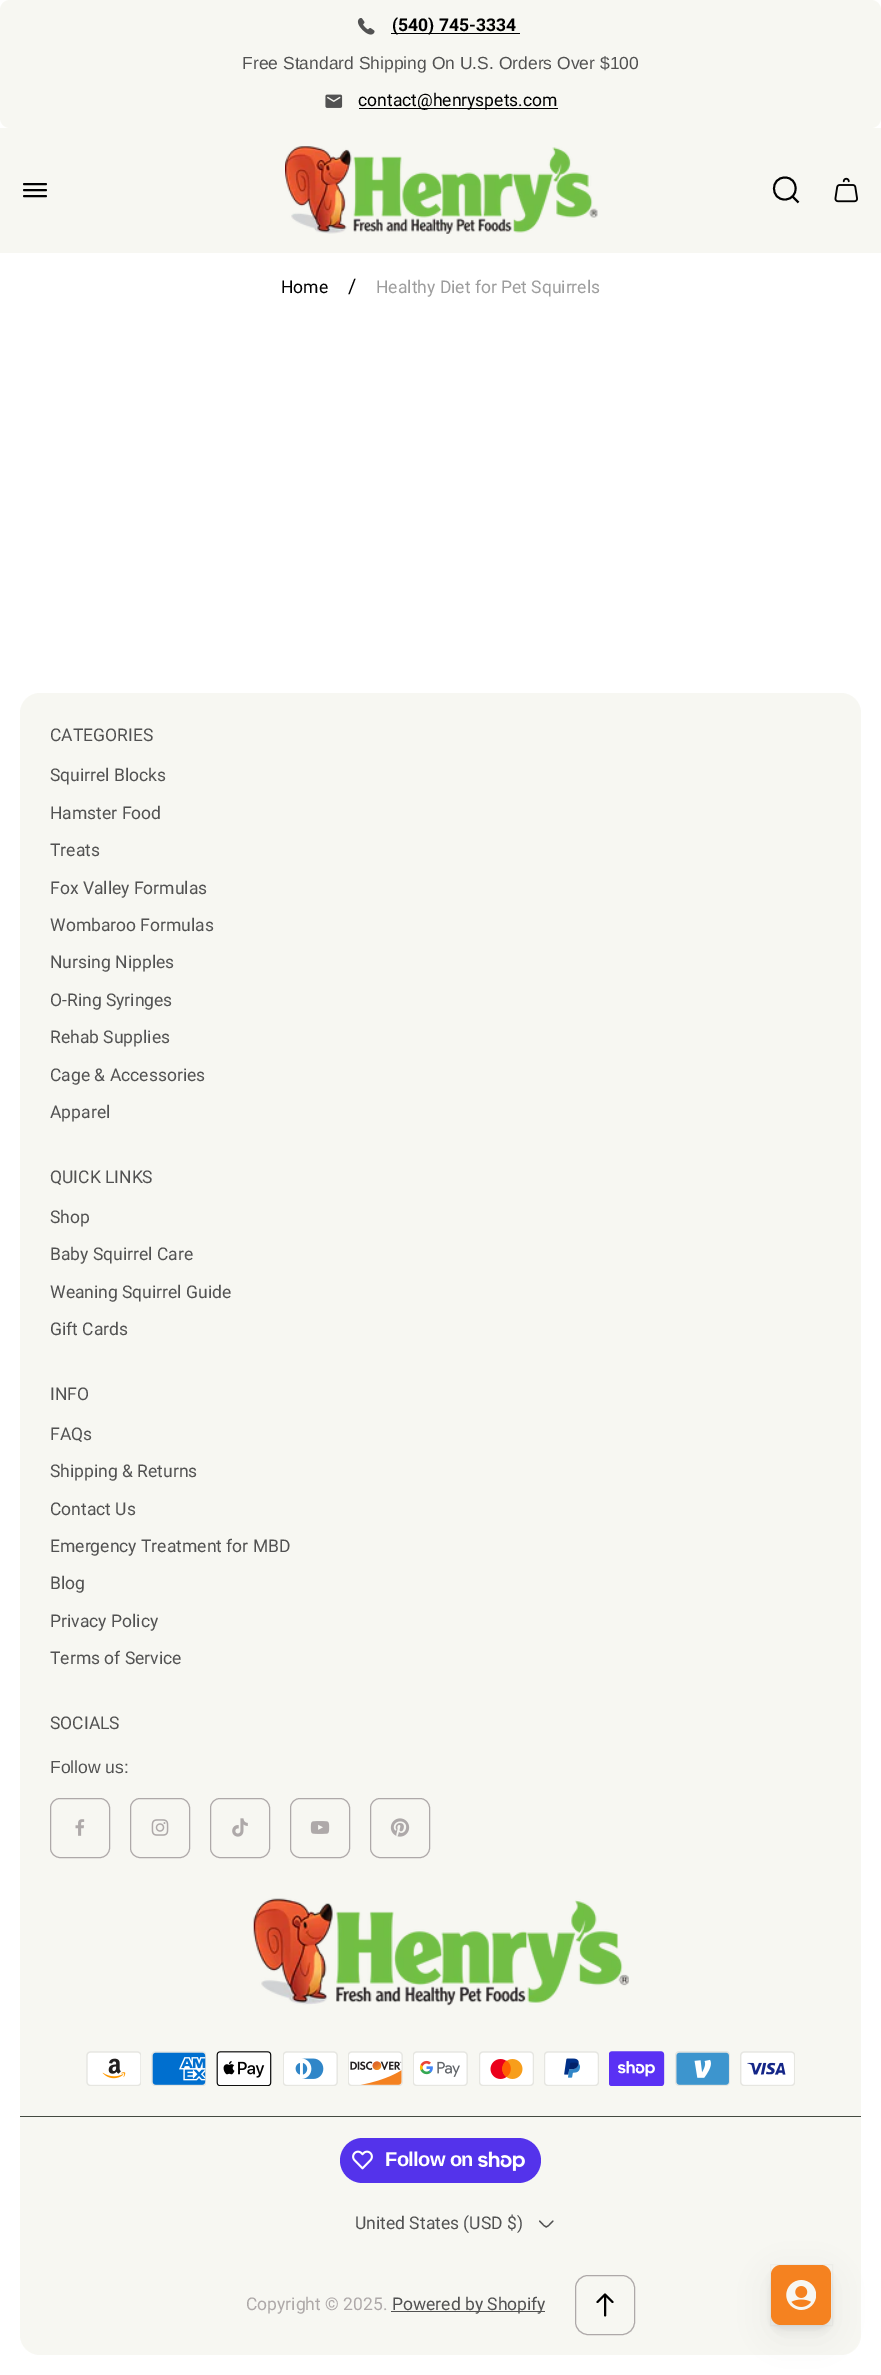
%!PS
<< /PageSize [881 2375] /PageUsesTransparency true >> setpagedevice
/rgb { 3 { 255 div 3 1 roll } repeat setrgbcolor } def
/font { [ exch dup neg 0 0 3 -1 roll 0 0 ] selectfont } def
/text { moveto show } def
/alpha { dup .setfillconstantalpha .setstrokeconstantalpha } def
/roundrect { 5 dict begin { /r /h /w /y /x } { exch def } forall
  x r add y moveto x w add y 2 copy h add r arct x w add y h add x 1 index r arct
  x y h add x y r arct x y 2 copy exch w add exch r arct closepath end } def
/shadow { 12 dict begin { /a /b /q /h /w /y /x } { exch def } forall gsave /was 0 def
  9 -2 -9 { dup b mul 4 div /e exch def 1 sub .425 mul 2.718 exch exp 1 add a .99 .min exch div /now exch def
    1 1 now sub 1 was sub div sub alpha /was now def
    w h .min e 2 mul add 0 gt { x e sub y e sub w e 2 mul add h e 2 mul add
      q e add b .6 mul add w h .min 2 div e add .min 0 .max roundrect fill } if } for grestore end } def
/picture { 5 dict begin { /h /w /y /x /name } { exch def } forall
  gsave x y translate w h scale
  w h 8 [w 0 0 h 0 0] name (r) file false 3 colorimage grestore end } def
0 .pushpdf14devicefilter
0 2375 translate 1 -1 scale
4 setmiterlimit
255 255 255 rgb
0 0 881 2375 rectfill
247 247 242 rgb
0 0 881 128 10 roundrect fill
(img_01.rgb) 357 18 18 17 picture
0 0 0 rgb
391 33 129 1 rectfill
(img_02.rgb) 325 94 18 14 picture
359 108 199 1 rectfill
247 247 242 rgb
0 128 881 125 rectfill
0 0 0 rgb
1.9 setlinewidth
1 setlinecap
24 184 moveto 22 0 rlineto 24 190 moveto 22 0 rlineto 24 196 moveto 22 0 rlineto stroke
(img_03.rgb) 285 146 313 88 picture
0 setlinecap
792.5 196.5 moveto 6 6 rlineto 785 177.5 moveto 14 0 14.5 21.5 0 22 rcurveto -14.5 0.5 -15 -22 0 -22 rcurveto closepath stroke
(img_04.rgb) 834 177 24 26 picture
247 247 242 rgb
20 693 841 1662 20 roundrect fill
174 169 169 rgb
1 setlinewidth
50.5 1798.5 59 59 9.5 roundrect stroke
(img_05.rgb) 75 1819 10 17 picture
130.5 1798.5 59 59 9.5 roundrect stroke
(img_06.rgb) 151 1819 18 17 picture
210.5 1798.5 59 59 9.5 roundrect stroke
(img_07.rgb) 232 1818 16 19 picture
290.5 1798.5 59 59 9.5 roundrect stroke
(img_08.rgb) 310 1821 20 13 picture
370.5 1798.5 59 59 9.5 roundrect stroke
(img_09.rgb) 390 1818 20 19 picture
(img_10.rgb) 253 1898 376 108 picture
(img_11.rgb) 86 2051 55 35 picture
(img_12.rgb) 151 2051 55 35 picture
(img_13.rgb) 216 2051 56 35 picture
(img_14.rgb) 283 2051 55 35 picture
(img_15.rgb) 348 2051 55 35 picture
(img_16.rgb) 413 2051 55 35 picture
(img_17.rgb) 479 2051 55 35 picture
(img_18.rgb) 544 2051 55 35 picture
(img_19.rgb) 609 2051 56 35 picture
(img_20.rgb) 675 2051 55 35 picture
(img_21.rgb) 740 2051 55 35 picture
69 75 66 rgb
20 2116 841 1 rectfill
84 51 235 rgb
340 2138 201 45 22.5 roundrect fill
(img_22.rgb) 352 2150 21 20 picture
(img_23.rgb) 478 2151 47 20 picture
82 82 82 rgb
1.2 setlinewidth
1 setlinecap
1 setlinejoin
553 2221 moveto -8 8 -5.5 8 -13.5 0 rcurveto stroke
391 2311 154 1 rectfill
174 169 169 rgb
1 setlinewidth
0 setlinecap
0 setlinejoin
575.5 2275.5 59 59 12.5 roundrect stroke
0 0 0 rgb
1.9 setlinewidth
1 setlinecap
1 setlinejoin
612.5 2302 moveto -7.5 -7.5 rlineto -7.5 7.5 rlineto 605 2315.5 moveto 0 -21 rlineto stroke
55 63 71 rgb
771 2275 60 60 10 15 0.08 shadow
771 2270 60 60 10 2.5 0.08 shadow
0.04 alpha
1 setlinewidth
0 setlinecap
0 setlinejoin
770.5 2264.5 62 61 rectstroke
1 alpha
245 130 32 rgb
771 2265 60 60 10 roundrect fill
(img_24.rgb) 786 2280 30 30 picture
/Roboto-Bold 17.5 font
0 0 0 rgb
(\(540\) 745-3334) 392 31 text
/LiberationSans-Regular 17.5 font
82 82 82 rgb
(Free Standard Shipping On U.S. Orders Over $100) 242 69 text
/Roboto-Regular 17.5 font
0 0 0 rgb
(contact@henryspets.com) 358 106 text
(Home) 281 293 text
/Roboto-Regular 20 font
(/) 348 293 text
/Roboto-Regular 17.5 font
157 157 157 rgb
(Healthy Diet for Pet Squirrels) 376 293 text
82 82 82 rgb
(CATEGORIES) 50 741 text
(Squirrel Blocks) 50 781 text
(Hamster Food) 50 819 text
(Treats) 50 856 text
(Fox Valley Formulas) 50 894 text
(Wombaroo Formulas) 50 931 text
(Nursing Nipples) 50 968 text
(O-Ring Syringes) 50 1006 text
(Rehab Supplies) 50 1043 text
(Cage & Accessories) 50 1081 text
(Apparel) 50 1118 text
(QUICK LINKS) 50 1183 text
(Shop) 50 1223 text
(Baby Squirrel Care) 50 1260 text
(Weaning Squirrel Guide) 50 1298 text
(Gift Cards) 50 1335 text
(INFO) 50 1400 text
(FAQs) 50 1440 text
(Shipping & Returns) 50 1477 text
(Contact Us) 50 1515 text
(Emergency Treatment for MBD) 50 1552 text
(Blog) 50 1589 text
(Privacy Policy) 50 1627 text
(Terms of Service) 50 1664 text
(SOCIALS) 50 1729 text
/LiberationSans-Regular 17.5 font
(Follow us:) 50 1773 text
/LiberationSans-Bold 20 font
255 255 255 rgb
385 2166 moveto -0.6 0 (Follow on) ashow
/Roboto-Regular 17.5 font
82 82 82 rgb
(United States \(USD $\)) 355 2229 text
174 169 169 rgb
(Copyright © 2025.) 246 2310 text
82 82 82 rgb
(Powered by Shopify) 392 2310 text
.poppdf14devicefilter showpage
